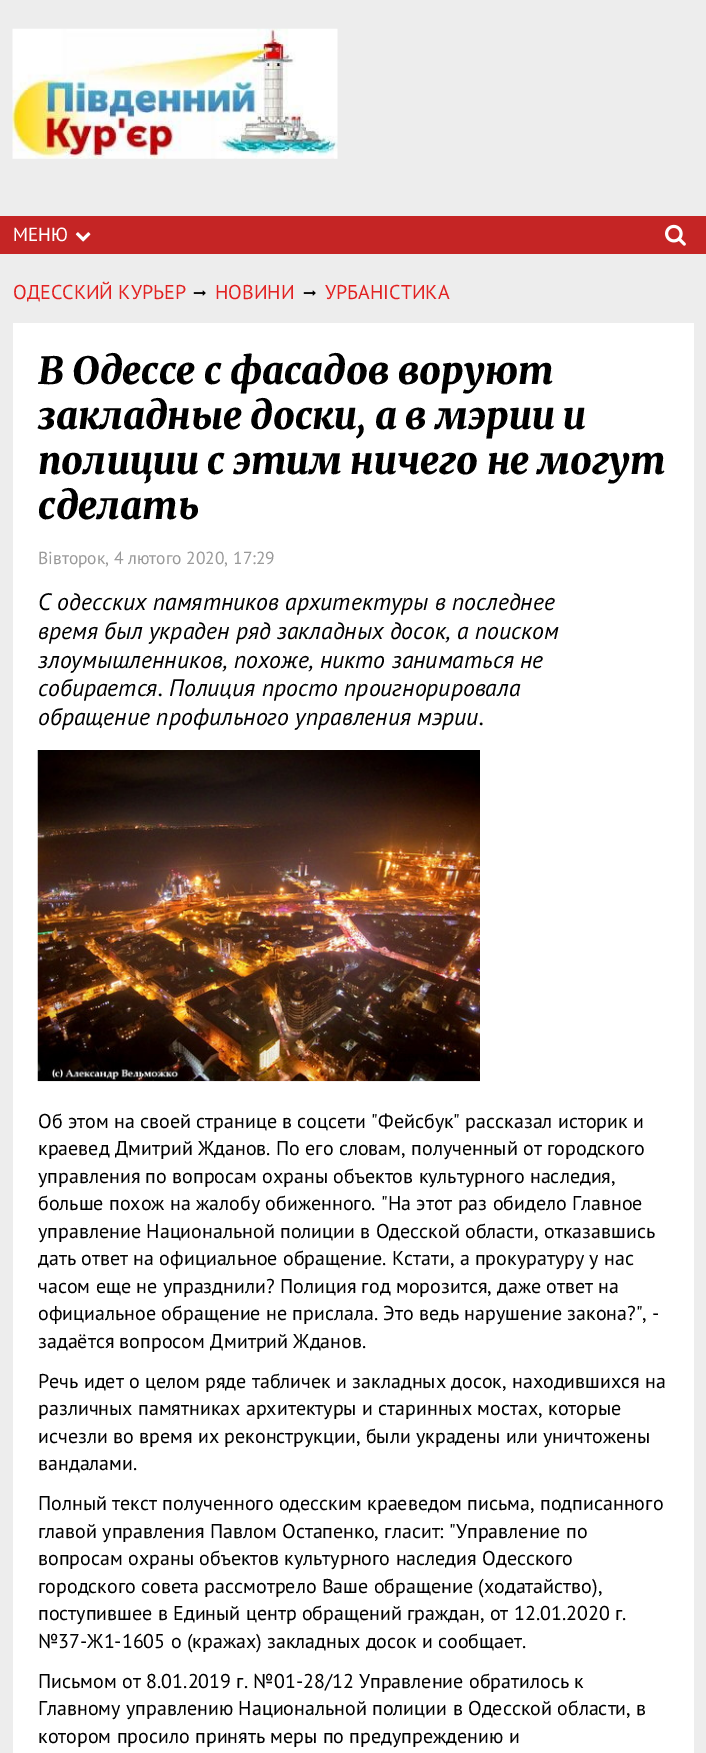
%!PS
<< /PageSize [706 1753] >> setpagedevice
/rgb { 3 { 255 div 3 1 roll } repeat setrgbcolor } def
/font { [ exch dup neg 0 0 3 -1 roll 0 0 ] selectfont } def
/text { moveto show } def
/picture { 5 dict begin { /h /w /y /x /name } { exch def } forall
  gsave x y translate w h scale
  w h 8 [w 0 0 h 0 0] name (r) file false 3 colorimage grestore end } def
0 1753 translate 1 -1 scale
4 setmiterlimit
237 237 237 rgb
0 0 706 1753 rectfill
(img_01.rgb) 12 28 326 131 picture
197 37 37 rgb
0 216 706 38 rectfill
(img_02.rgb) 75 232 16 10 picture
(img_03.rgb) 665 224 21 22 picture
(img_04.rgb) 193 290 13 6 picture
(img_04.rgb) 303 290 13 6 picture
255 255 255 rgb
13 323 681 1430 rectfill
(img_05.rgb) 37 750 443 332 picture
/PTSans-Regular 19 font
(МЕНЮ) 13 241 text
/PTSans-Regular 20 font
226 34 34 rgb
(ОДЕССКИЙ КУРЬЕР) 13 299 text
(НОВИНИ) 215 299 text
(УРБАНІСТИКА) 325 299 text
/Merriweather-LightItalic 37.5 font
0 0 0 rgb
(В Одессе с фасадов воруют) 38 384 text
(закладные доски, а в мэрии и) 38 429 text
(полиции с этим ничего не могут) 38 474 text
(сделать) 38 519 text
/PTSans-Regular 17.5 font
153 153 153 rgb
(Вівторок, 4 лютого 2020, 17:29) 38 564 text
/PTSans-Italic 23.75 font
0 0 0 rgb
(С одесских памятников архитектуры в последнее) 38 610 text
(время был украден ряд закладных досок, а поиском) 38 639 text
(злоумышленников, похоже, никто заниматься не) 38 668 text
(собирается. Полиция просто проигнорировала) 38 696 text
(обращение профильного управления мэрии.) 38 725 text
/PTSans-Regular 20 font
(Об этом на своей странице в соцсети "Фейсбук" рассказал историк и) 38 1128 text
(краевед Дмитрий Жданов. По его словам, полученный от городского) 38 1155 text
(управления по вопросам охраны объектов культурного наследия,) 38 1183 text
(больше похож на жалобу обиженного. "На этот раз обидело Главное) 38 1210 text
(управление Национальной полиции в Одесской области, отказавшись) 38 1238 text
(дать ответ на официальное обращение. Кстати, а прокуратуру у нас) 38 1265 text
(часом еще не упразднили? Полиция год морозится, даже ответ на) 38 1293 text
(официальное обращение не прислала. Это ведь нарушение закона?", -) 38 1320 text
(задаётся вопросом Дмитрий Жданов.) 38 1348 text
(Речь идет о целом ряде табличек и закладных досок, находившихся на) 38 1388 text
(различных памятниках архитектуры и старинных мостах, которые) 38 1415 text
(исчезли во время их реконструкции, были украдены или уничтожены) 38 1443 text
(вандалами.) 38 1470 text
(Полный текст полученного одесским краеведом письма, подписанного) 38 1510 text
(главой управления Павлом Остапенко, гласит: "Управление по) 38 1538 text
(вопросам охраны объектов культурного наследия Одесского) 38 1565 text
(городского совета рассмотрело Ваше обращение \(ходатайство\),) 38 1593 text
(поступившее в Единый центр обращений граждан, от 12.01.2020 г.) 38 1620 text
(№37-Ж1-1605 о \(кражах\) закладных досок и сообщает.) 38 1648 text
(Письмом от 8.01.2019 г. №01-28/12 Управление обратилось к) 38 1688 text
(Главному управлению Национальной полиции в Одесской области, в) 38 1715 text
(котором просило принять меры по предупреждению и) 38 1743 text
showpage
